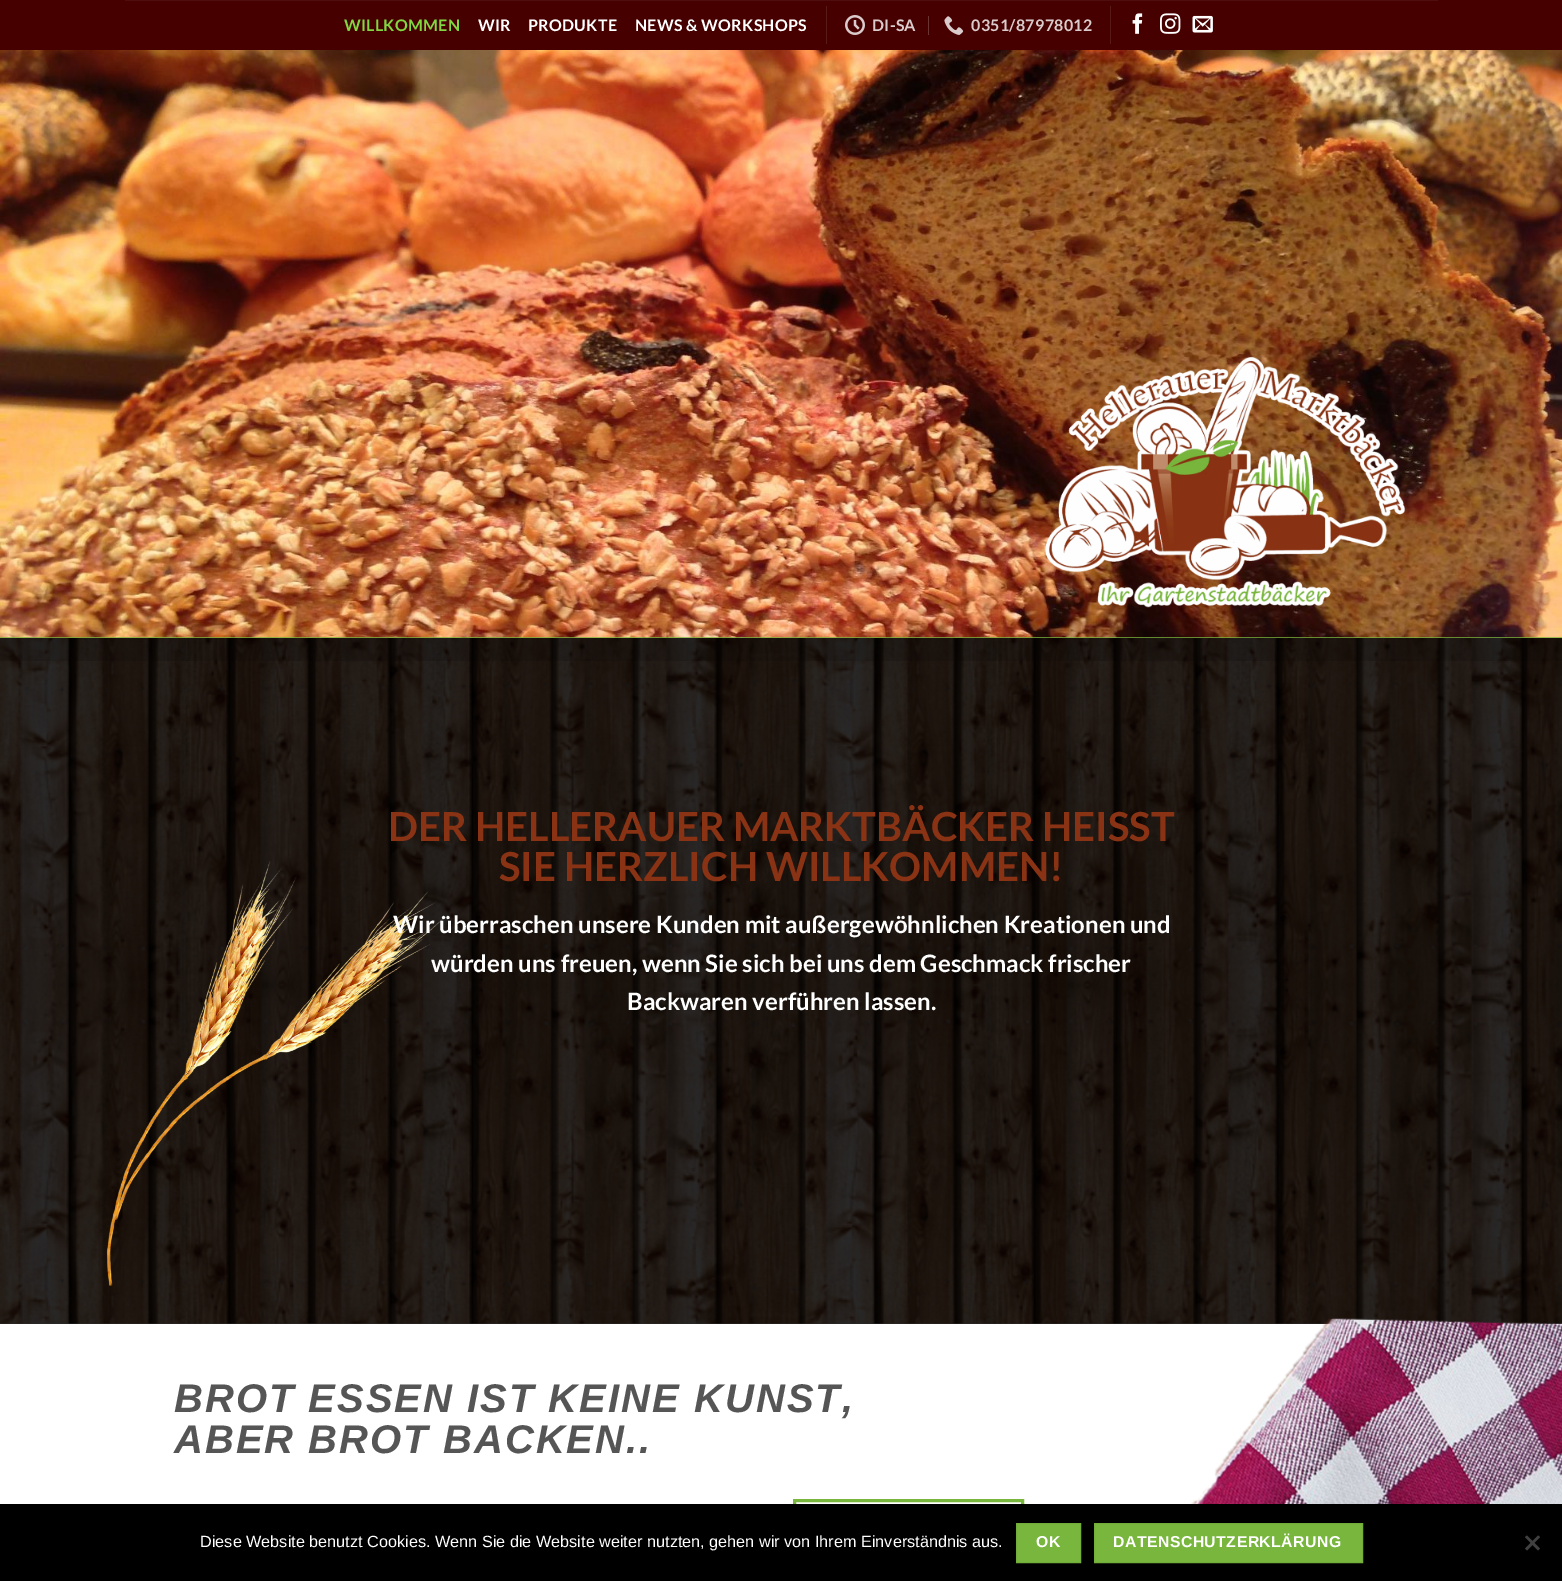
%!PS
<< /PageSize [1562 1581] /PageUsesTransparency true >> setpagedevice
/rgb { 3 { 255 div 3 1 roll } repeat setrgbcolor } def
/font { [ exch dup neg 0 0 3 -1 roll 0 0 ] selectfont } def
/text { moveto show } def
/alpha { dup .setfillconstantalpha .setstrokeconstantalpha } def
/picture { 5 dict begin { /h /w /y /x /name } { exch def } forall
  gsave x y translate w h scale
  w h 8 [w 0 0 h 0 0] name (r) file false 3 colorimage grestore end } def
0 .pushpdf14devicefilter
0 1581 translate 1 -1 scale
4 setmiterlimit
255 255 255 rgb
0 0 1562 1581 rectfill
43 43 43 rgb
0 638 1562 686 rectfill
71 0 0 rgb
0 0 1562 50 rectfill
78 14 14 rgb
125 0 1313 1 rectfill
89 26 26 rgb
826 6 1 38 rectfill
(img_01.rgb) 845 15 20 20 picture
108 51 51 rgb
928 16 1 19 rectfill
(img_02.rgb) 944 16 20 19 picture
89 26 26 rgb
1110 6 1 38 rectfill
(img_03.rgb) 1132 13 11 21 picture
(img_04.rgb) 1160 13 21 21 picture
(img_05.rgb) 1192 15 21 18 picture
121 182 61 rgb
0 637 1562 1 rectfill
(img_06.rgb) 0 50 1562 588 picture
(img_07.rgb) 1045 356 360 252 picture
(img_08.rgb) 0 638 1562 686 picture
0.15 alpha
0 0 0 rgb
0 638 1562 23 rectfill
1 alpha
(img_09.rgb) 106 861 340 425 picture
121 182 61 rgb
3 setlinewidth
794.5 1500.5 228 46 rectstroke
(img_10.rgb) 1191 1318 371 186 picture
0 0 0 rgb
0 1504 1562 77 rectfill
121 182 61 rgb
1016.5 1523.5 moveto 64 0 rlineto 0 39 rlineto -64 0 rlineto closepath gsave fill grestore
115 173 58 rgb
1 setlinewidth
stroke
121 182 61 rgb
1094.5 1523.5 moveto 268 0 rlineto 0 39 rlineto -268 0 rlineto closepath gsave fill grestore
115 173 58 rgb
stroke
64 64 64 rgb
1538 1535.5 moveto 2 1.5 rlineto -13 13.5 rlineto -2 -2 rlineto closepath fill
1525 1537 moveto 2 -1.5 rlineto 13 13 rlineto -2 2 rlineto closepath fill
/Lato-Bold 16 font
129 215 66 rgb
344 31 moveto 0.3 0 (WILLKOMMEN) ashow
255 255 255 rgb
478 31 moveto 0.3 0 (WIR) ashow
528 31 moveto 0.3 0 (PRODUKTE) ashow
635 31 moveto 0.3 0 (NEWS & WORKSHOPS) ashow
218 204 204 rgb
872 31 moveto 0.3 0 (DI-SA) ashow
971 31 moveto 0.3 0 (0351/87978012) ashow
/Lato-Bold 40 font
137 50 20 rgb
(DER HELLERAUER MARKTBÄCKER HEISST) 388 841 text
(SIE HERZLICH WILLKOMMEN!) 499 881 text
/Lato-Bold 24 font
255 255 255 rgb
(Wir überraschen unsere Kunden mit außergewöhnlichen Kreationen und) 393 933 text
(würden uns freuen, wenn Sie sich bei uns dem Geschmack frischer) 431 972 text
(Backwaren verführen lassen.) 627 1010 text
/LiberationSans-BoldItalic 40 font
85 85 85 rgb
174 1412 moveto 2 0 (BROT ESSEN IST KEINE KUNST,) ashow
174 1453 moveto 2 0 (ABER BROT BACKEN..) ashow
/LiberationSans-Regular 16.25 font
255 255 255 rgb
(Diese Website benutzt Cookies. Wenn Sie die Website weiter nutzten, gehen wir von Ihrem Einverständnis aus.) 200 1547 text
/LiberationSans-Bold 15.75 font
1036 1547 moveto 0.5 0 (OK) ashow
1113 1547 moveto 0.5 0 (DATENSCHUTZERKLÄRUNG) ashow
.poppdf14devicefilter showpage
